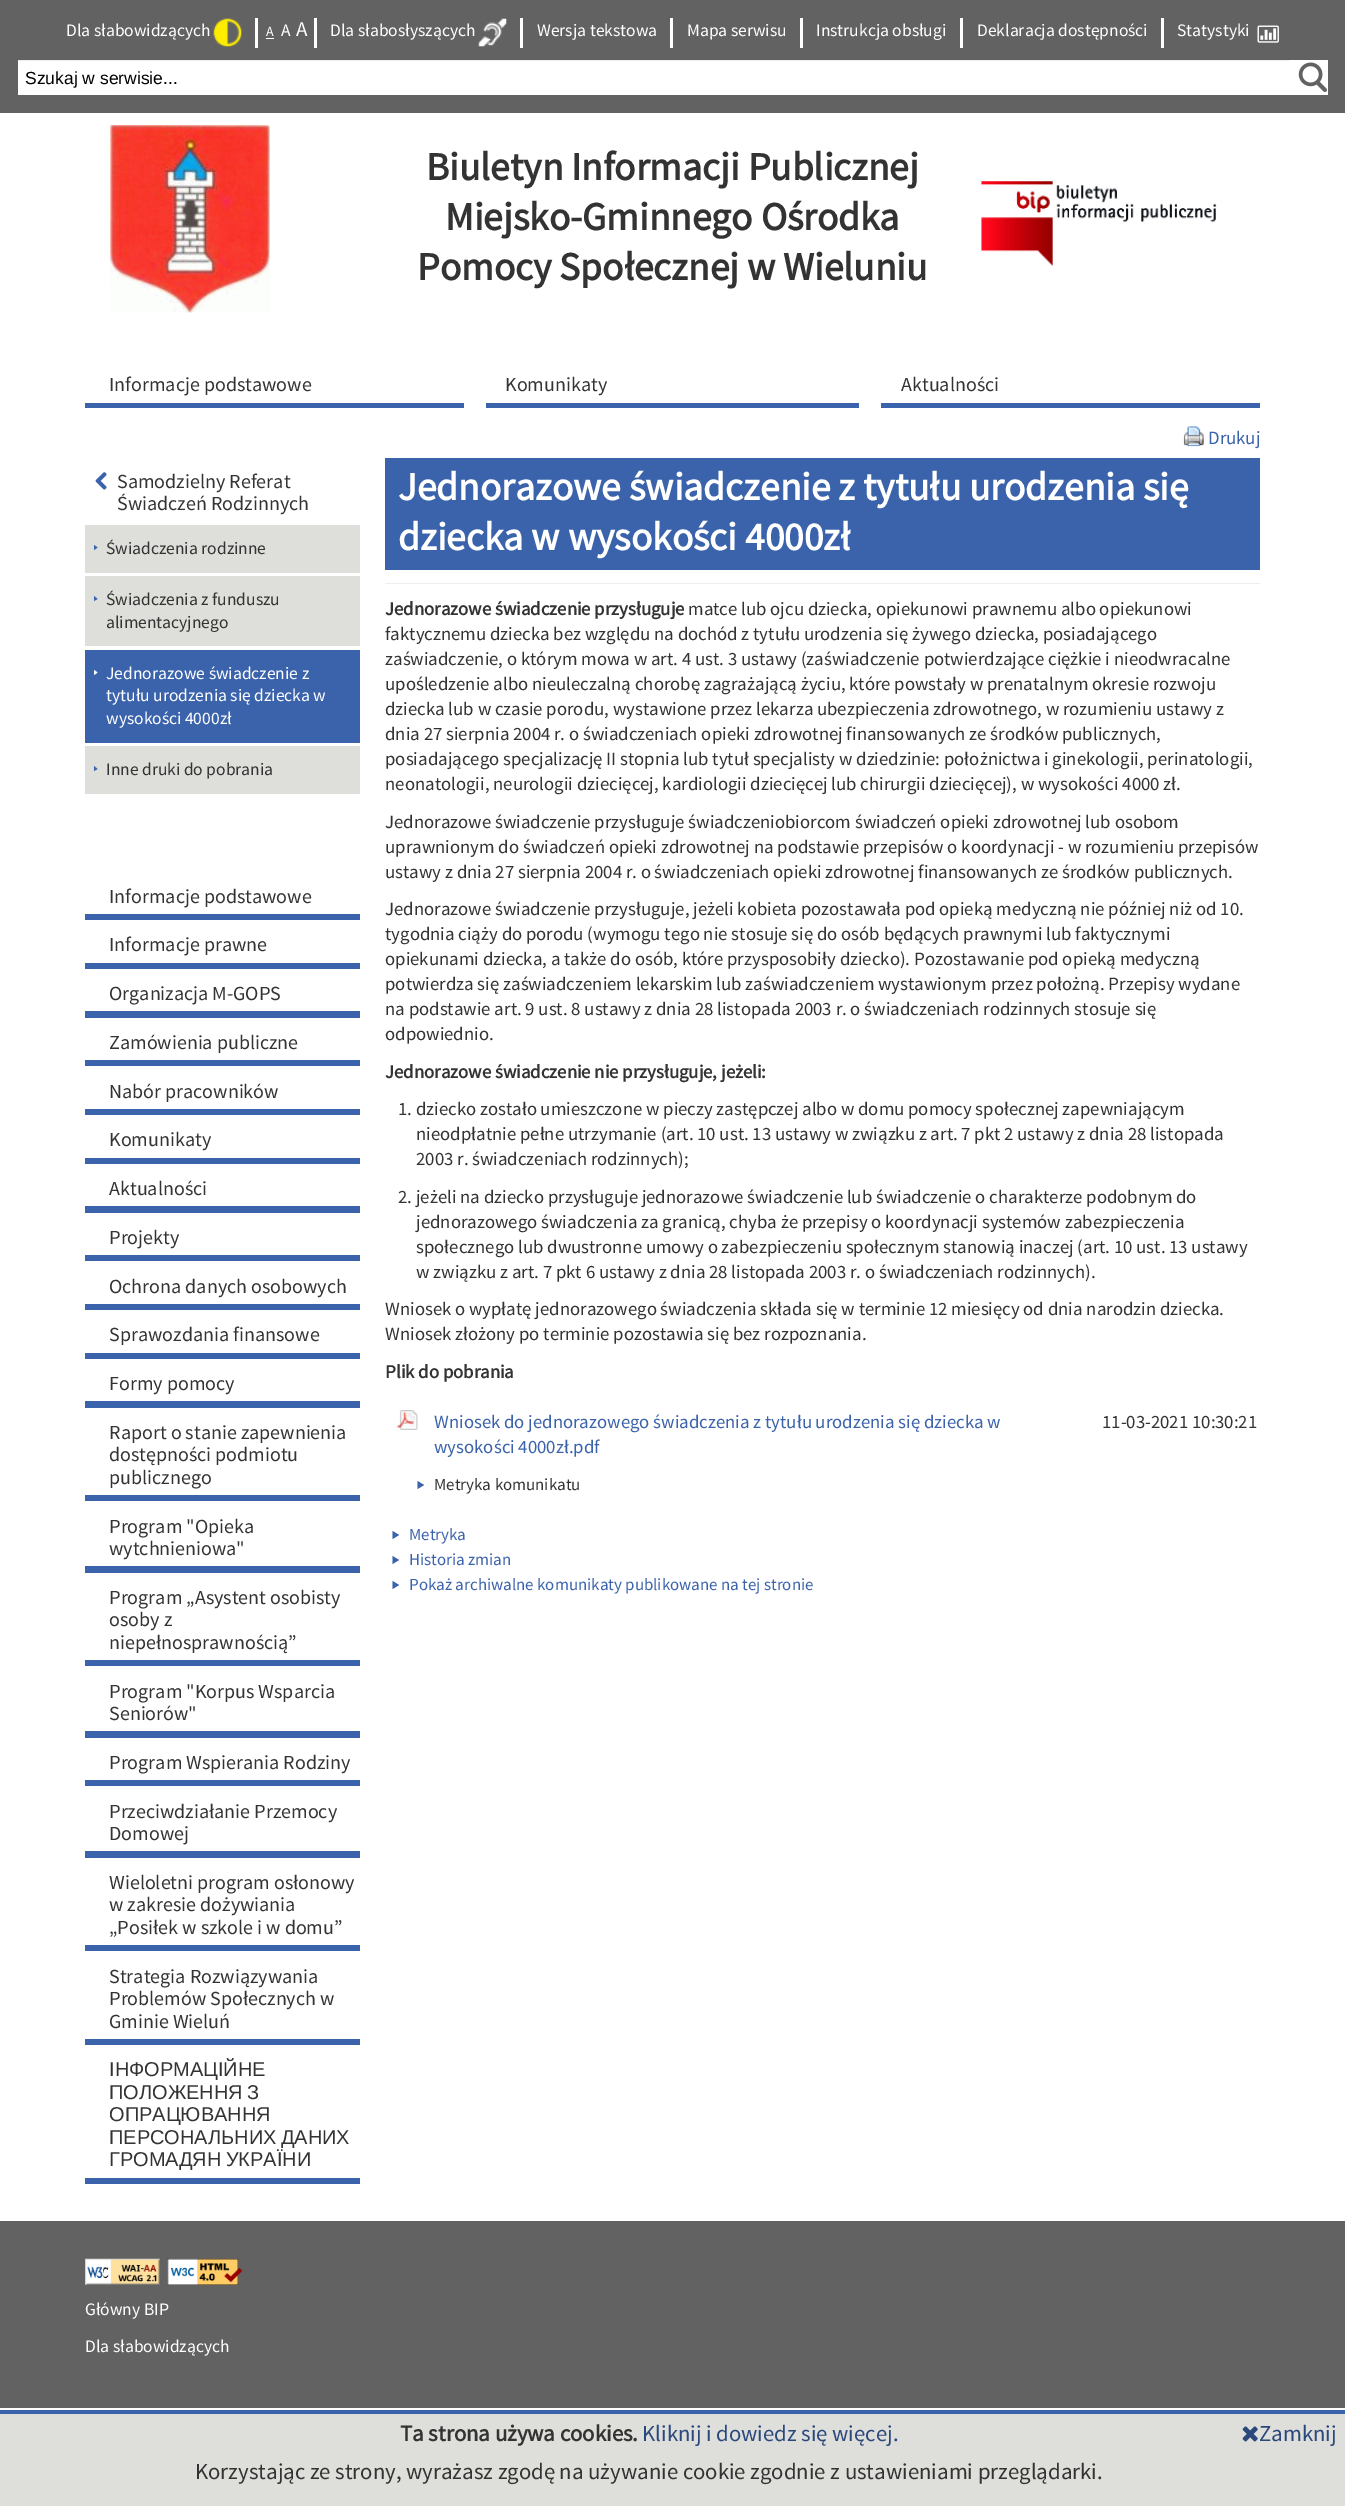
%!PS
<< /PageSize [1345 2506] >> setpagedevice
/rgb { 3 { 255 div 3 1 roll } repeat setrgbcolor } def
/font { [ exch dup neg 0 0 3 -1 roll 0 0 ] selectfont } def
/text { moveto show } def
/picture { 5 dict begin { /h /w /y /x /name } { exch def } forall
  gsave x y translate w h scale
  w h 8 [w 0 0 h 0 0] name (r) file false 3 colorimage grestore end } def
0 2506 translate 1 -1 scale
4 setmiterlimit
255 255 255 rgb
0 0 1345 2506 rectfill
98 98 98 rgb
0 0 1345 113 rectfill
255 255 255 rgb
255 18 3 30 rectfill
(img_01.rgb) 213 18 29 29 picture
314 18 3 30 rectfill
266 38 8 1 rectfill
520 18 3 30 rectfill
(img_02.rgb) 478 18 29 29 picture
670 18 3 30 rectfill
800 18 3 30 rectfill
960 18 3 30 rectfill
1161 18 3 30 rectfill
(img_03.rgb) 1257 25 22 18 picture
18 61 1271 34 rectfill
236 236 236 rgb
18 60 1273 1 rectfill
255 255 255 rgb
1289 60 39 35 rectfill
(img_04.rgb) 1298 62 29 30 picture
(img_05.rgb) 110 125 160 188 picture
(img_06.rgb) 981 181 236 85 picture
59 99 172 rgb
85 403 379 5 rectfill
486 403 373 5 rectfill
881 403 379 5 rectfill
(img_07.rgb) 95 472 12 18 picture
222 222 218 rgb
85 525 275 48 rectfill
59 99 172 rgb
94 550 moveto 0 -5 rlineto 3.5 2.5 rlineto closepath fill
222 222 218 rgb
85 576 275 70 rectfill
59 99 172 rgb
94 601 moveto 0 -5 rlineto 3.5 3 rlineto closepath fill
85 650 275 93 rectfill
255 255 255 rgb
94 675 moveto 0 -5 rlineto 3.5 2.5 rlineto closepath fill
222 222 218 rgb
85 746 275 48 rectfill
59 99 172 rgb
94 771 moveto 0 -5 rlineto 3.5 3 rlineto closepath fill
85 914 275 6 rectfill
85 963 275 6 rectfill
85 1011 275 7 rectfill
85 1060 275 6 rectfill
85 1109 275 6 rectfill
85 1158 275 6 rectfill
85 1206 275 7 rectfill
85 1255 275 6 rectfill
85 1304 275 6 rectfill
85 1353 275 6 rectfill
85 1401 275 7 rectfill
85 1495 275 6 rectfill
85 1566 275 7 rectfill
85 1660 275 6 rectfill
85 1731 275 7 rectfill
85 1780 275 6 rectfill
85 1851 275 7 rectfill
85 1945 275 6 rectfill
85 2039 275 6 rectfill
85 2178 275 6 rectfill
(img_08.rgb) 1183 426 21 21 picture
385 458 875 112 rectfill
238 238 238 rgb
385 583 875 1 rectfill
(img_09.rgb) 397 1410 21 20 picture
59 99 172 rgb
417.5 1489 moveto 0 -8 rlineto 6.5 4 rlineto closepath fill
392.5 1539 moveto 0 -8 rlineto 6.5 4 rlineto closepath fill
392.5 1564 moveto 0 -8 rlineto 6.5 4 rlineto closepath fill
392.5 1589 moveto 0 -8 rlineto 6.5 4 rlineto closepath fill
98 98 98 rgb
0 2221 1345 187 rectfill
(img_10.rgb) 85 2258 75 27 picture
(img_11.rgb) 167 2258 76 27 picture
222 222 218 rgb
0 2414 1345 92 rectfill
59 99 172 rgb
0 2410 1345 4 rectfill
(img_12.rgb) 1242 2426 16 16 picture
/SourceSansPro-Regular 17.5 font
255 255 255 rgb
(Dla słabowidzących) 66 36 text
/SourceSansPro-Regular 14 font
(A) 266 36 text
/SourceSansPro-Regular 17.5 font
(A) 281 36 text
/SourceSansPro-Regular 21 font
(A) 296 36 text
/SourceSansPro-Regular 17.5 font
(Dla słabosłyszących) 330 36 text
(Wersja tekstowa) 537 36 text
(Mapa serwisu) 687 36 text
(Instrukcja obsługi) 816 36 text
(Deklaracja dostępności) 977 36 text
(Statystyki) 1177 36 text
/LiberationSans-Regular 17.5 font
0 0 0 rgb
(Szukaj w serwisie...) 25 84 text
/SourceSansPro-Bold 39.4 font
51 51 51 rgb
(Biuletyn Informacji Publicznej) 426 180 text
(Miejsko-Gminnego Ośrodka) 445 230 text
(Pomocy Społecznej w Wieluniu) 417 280 text
/SourceSansPro-Regular 20 font
(Informacje podstawowe) 109 391 text
(Komunikaty) 505 391 text
(Aktualności) 901 391 text
(Samodzielny Referat) 117 488 text
(Świadczeń Rodzinnych) 117 510 text
/SourceSansPro-Regular 17.5 font
(Świadczenia rodzinne) 106 554 text
(Świadczenia z funduszu) 106 605 text
(alimentacyjnego) 106 628 text
255 255 255 rgb
(Jednorazowe świadczenie z) 106 679 text
(tytułu urodzenia się dziecka w) 106 701 text
(wysokości 4000zł) 106 724 text
51 51 51 rgb
(Inne druki do pobrania) 106 775 text
/SourceSansPro-Regular 20 font
(Informacje podstawowe) 109 903 text
(Informacje prawne) 109 951 text
(Organizacja M-GOPS) 109 1000 text
(Zamówienia publiczne) 109 1049 text
(Nabór pracowników) 109 1098 text
(Komunikaty) 109 1146 text
(Aktualności) 109 1195 text
(Projekty) 109 1244 text
(Ochrona danych osobowych) 109 1293 text
(Sprawozdania finansowe) 109 1341 text
(Formy pomocy) 109 1390 text
(Raport o stanie zapewnienia) 109 1439 text
(dostępności podmiotu) 109 1461 text
(publicznego) 109 1484 text
(Program "Opieka) 109 1533 text
(wytchnieniowa") 109 1555 text
(Program „Asystent osobisty) 109 1604 text
(osoby z) 109 1626 text
(niepełnosprawnością”) 109 1649 text
(Program "Korpus Wsparcia) 109 1698 text
(Seniorów") 109 1720 text
(Program Wspierania Rodziny) 109 1769 text
(Przeciwdziałanie Przemocy) 109 1818 text
(Domowej) 109 1840 text
(Wieloletni program osłonowy) 109 1889 text
(w zakresie dożywiania) 109 1911 text
(„Posiłek w szkole i w domu”) 109 1934 text
(Strategia Rozwiązywania) 109 1983 text
(Problemów Społecznych w) 109 2005 text
(Gminie Wieluń) 109 2028 text
/LiberationSans-Regular 20 font
(ІНФОРМАЦІЙНЕ) 109 2076 text
109 2099 moveto -1 0 32 (ПОЛОЖЕННЯ З) widthshow
(ОПРАЦЮВАННЯ) 109 2121 text
109 2144 moveto -1 0 32 (ПЕРСОНАЛЬНИХ ДАНИХ) widthshow
109 2166 moveto -1 0 32 (ГРОМАДЯН УКРАЇНИ) widthshow
/SourceSansPro-Regular 18.75 font
59 99 172 rgb
(Drukuj) 1208 444 text
/SourceSansPro-Bold 39.4 font
255 255 255 rgb
(Jednorazowe świadczenie z tytułu urodzenia się) 398 500 text
(dziecka w wysokości 4000zł) 398 550 text
/SourceSansPro-Bold 18.75 font
51 51 51 rgb
(Jednorazowe świadczenie przysługuje) 385 615 text
/SourceSansPro-Regular 18.75 font
(matce lub ojcu dziecka, opiekunowi prawnemu albo opiekunowi) 688 615 text
(faktycznemu dziecka bez względu na dochód z tytułu urodzenia się żywego dziecka, posiadającego) 385 640 text
(zaświadczenie, o którym mowa w art. 4 ust. 3 ustawy \(zaświadczenie potwierdzające ciężkie i nieodwracalne) 385 665 text
(upośledzenie albo nieuleczalną chorobę zagrażającą życiu, które powstały w prenatalnym okresie rozwoju) 385 690 text
(dziecka lub w czasie porodu, wystawione przez lekarza ubezpieczenia zdrowotnego, w rozumieniu ustawy z) 385 715 text
(dnia 27 sierpnia 2004 r. o świadczeniach opieki zdrowotnej finansowanych ze środków publicznych,) 385 740 text
(posiadającego specjalizację II stopnia lub tytuł specjalisty w dziedzinie: położnictwa i ginekologii, perinatologii,) 385 765 text
(neonatologii, neurologii dziecięcej, kardiologii dziecięcej lub chirurgii dziecięcej\), w wysokości 4000 zł.) 385 790 text
(Jednorazowe świadczenie przysługuje świadczeniobiorcom świadczeń opieki zdrowotnej lub osobom) 385 828 text
(uprawnionym do świadczeń opieki zdrowotnej na podstawie przepisów o koordynacji - w rozumieniu przepisów) 385 853 text
(ustawy z dnia 27 sierpnia 2004 r. o świadczeniach opieki zdrowotnej finansowanych ze środków publicznych.) 385 878 text
(Jednorazowe świadczenie przysługuje, jeżeli kobieta pozostawała pod opieką medyczną nie później niż od 10.) 385 915 text
(tygodnia ciąży do porodu \(wymogu tego nie stosuje się do osób będących prawnymi lub faktycznymi) 385 940 text
(opiekunami dziecka, a także do osób, które przysposobiły dziecko\). Pozostawanie pod opieką medyczną) 385 965 text
(potwierdza się zaświadczeniem lekarskim lub zaświadczeniem wystawionym przez położną. Przepisy wydane) 385 990 text
(na podstawie art. 9 ust. 8 ustawy z dnia 28 listopada 2003 r. o świadczeniach rodzinnych stosuje się) 385 1015 text
(odpowiednio.) 385 1040 text
/SourceSansPro-Bold 18.75 font
(Jednorazowe świadczenie nie przysługuje, jeżeli:) 385 1078 text
/SourceSansPro-Regular 18.75 font
(1. dziecko zostało umieszczone w pieczy zastępczej albo w domu pomocy społecznej zapewniającym) 398 1115 text
(nieodpłatnie pełne utrzymanie \(art. 10 ust. 13 ustawy w związku z art. 7 pkt 2 ustawy z dnia 28 listopada) 416 1140 text
(2003 r. świadczeniach rodzinnych\);) 416 1165 text
(2. jeżeli na dziecko przysługuje jednorazowe świadczenie lub świadczenie o charakterze podobnym do) 398 1203 text
(jednorazowego świadczenia za granicą, chyba że przepisy o koordynacji systemów zabezpieczenia) 416 1228 text
(społecznego lub dwustronne umowy o zabezpieczeniu społecznym stanowią inaczej \(art. 10 ust. 13 ustawy) 416 1253 text
(w związku z art. 7 pkt 6 ustawy z dnia 28 listopada 2003 r. o świadczeniach rodzinnych\).) 416 1278 text
(Wniosek o wypłatę jednorazowego świadczenia składa się w terminie 12 miesięcy od dnia narodzin dziecka.) 385 1315 text
(Wniosek złożony po terminie pozostawia się bez rozpoznania.) 385 1340 text
/SourceSansPro-Bold 18.75 font
(Plik do pobrania) 385 1378 text
/SourceSansPro-Regular 18.75 font
59 99 172 rgb
(Wniosek do jednorazowego świadczenia z tytułu urodzenia się dziecka w) 434 1428 text
(wysokości 4000zł.pdf) 434 1453 text
51 51 51 rgb
(11‑03‑2021 10:30:21) 1102 1428 text
/SourceSansPro-Regular 16.9 font
(Metryka komunikatu) 434 1490 text
59 99 172 rgb
(Metryka) 409 1540 text
(Historia zmian) 409 1565 text
(Pokaż archiwalne komunikaty publikowane na tej stronie) 409 1590 text
/SourceSansPro-Regular 17.5 font
255 255 255 rgb
(Główny BIP) 85 2315 text
(Dla słabowidzących) 85 2352 text
/SourceSansPro-Bold 22.75 font
51 51 51 rgb
(Ta strona używa cookies.) 400 2441 text
/SourceSansPro-Regular 22.75 font
43 72 125 rgb
(Kliknij i dowiedz się więcej.) 642 2441 text
51 51 51 rgb
(Korzystając ze strony, wyrażasz zgodę na używanie cookie zgodnie z ustawieniami przeglądarki.) 195 2479 text
43 72 125 rgb
(Zamknij) 1259 2441 text
showpage
